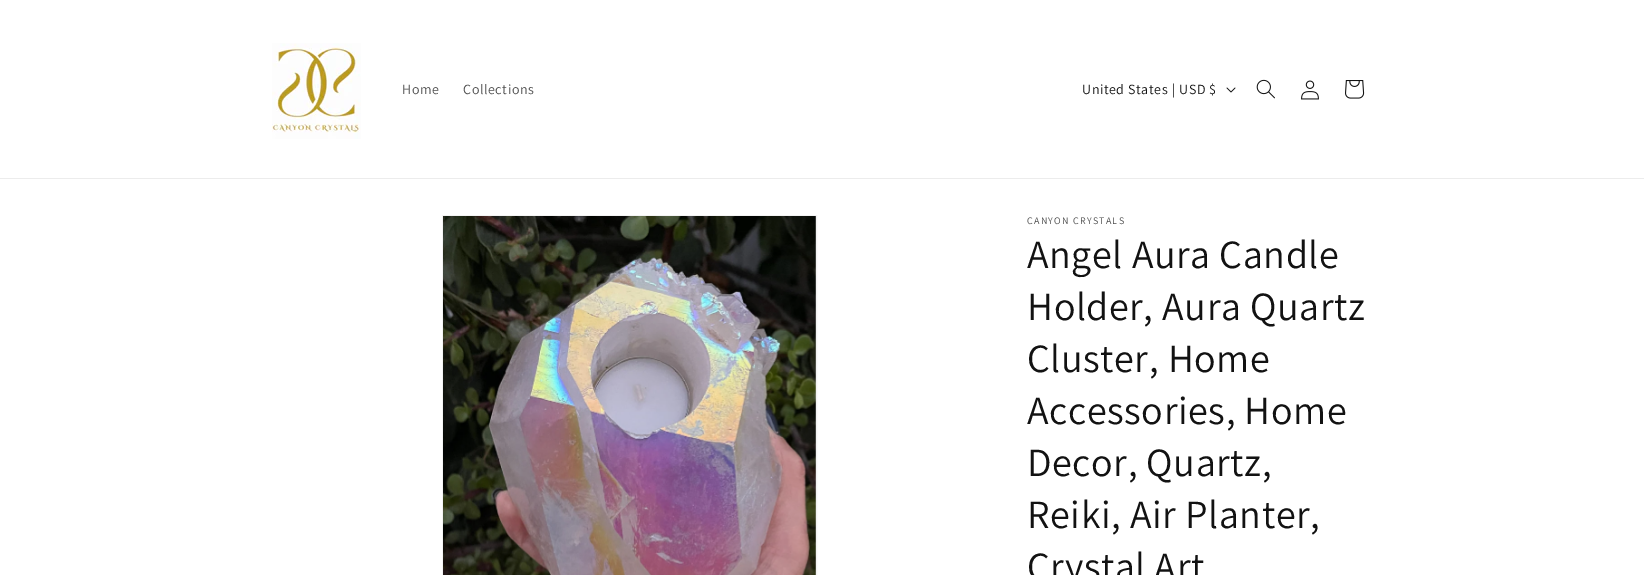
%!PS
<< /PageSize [1644 575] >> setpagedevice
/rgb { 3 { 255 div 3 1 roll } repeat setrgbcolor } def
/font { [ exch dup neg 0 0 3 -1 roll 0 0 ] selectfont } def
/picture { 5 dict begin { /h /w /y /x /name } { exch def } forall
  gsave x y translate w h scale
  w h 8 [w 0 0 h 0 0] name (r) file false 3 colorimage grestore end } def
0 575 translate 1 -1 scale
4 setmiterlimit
255 255 255 rgb
0 0 1644 575 rectfill
236 236 236 rgb
0 178 1644 1 rectfill
(img_01.rgb) 272 43 89 96 picture
(img_02.rgb) 1226 87 10 6 picture
(img_03.rgb) 1256 79 19 20 picture
(img_04.rgb) 1301 80 18 20 picture
(img_05.rgb) 1345 80 20 19 picture
243 243 243 rgb
442.5 215.5 374 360 rectstroke
(img_06.rgb) 443 216 373 359 picture
/Assistant-Regular 14 font
77 77 77 rgb
402 94 moveto 0.6 0 (Home) ashow
463 94 moveto 0.6 0 (Collections) ashow
18 18 18 rgb
1082 94 moveto 0.6 0 (United States | USD $) ashow
/Assistant-Regular 10 font
77 77 77 rgb
1027 224 moveto 1.25 0 (CANYON CRYSTALS) ashow
/Assistant-Regular 40 font
18 18 18 rgb
1027 268 moveto 0.6 0 (Angel Aura Candle) ashow
1027 320 moveto 0.6 0 (Holder, Aura Quartz) ashow
1027 372 moveto 0.6 0 (Cluster, Home) ashow
1027 424 moveto 0.6 0 (Accessories, Home) ashow
1027 476 moveto 0.6 0 (Decor, Quartz,) ashow
1027 528 moveto 0.6 0 (Reiki, Air Planter,) ashow
1027 580 moveto 0.6 0 (Crystal Art) ashow
showpage
